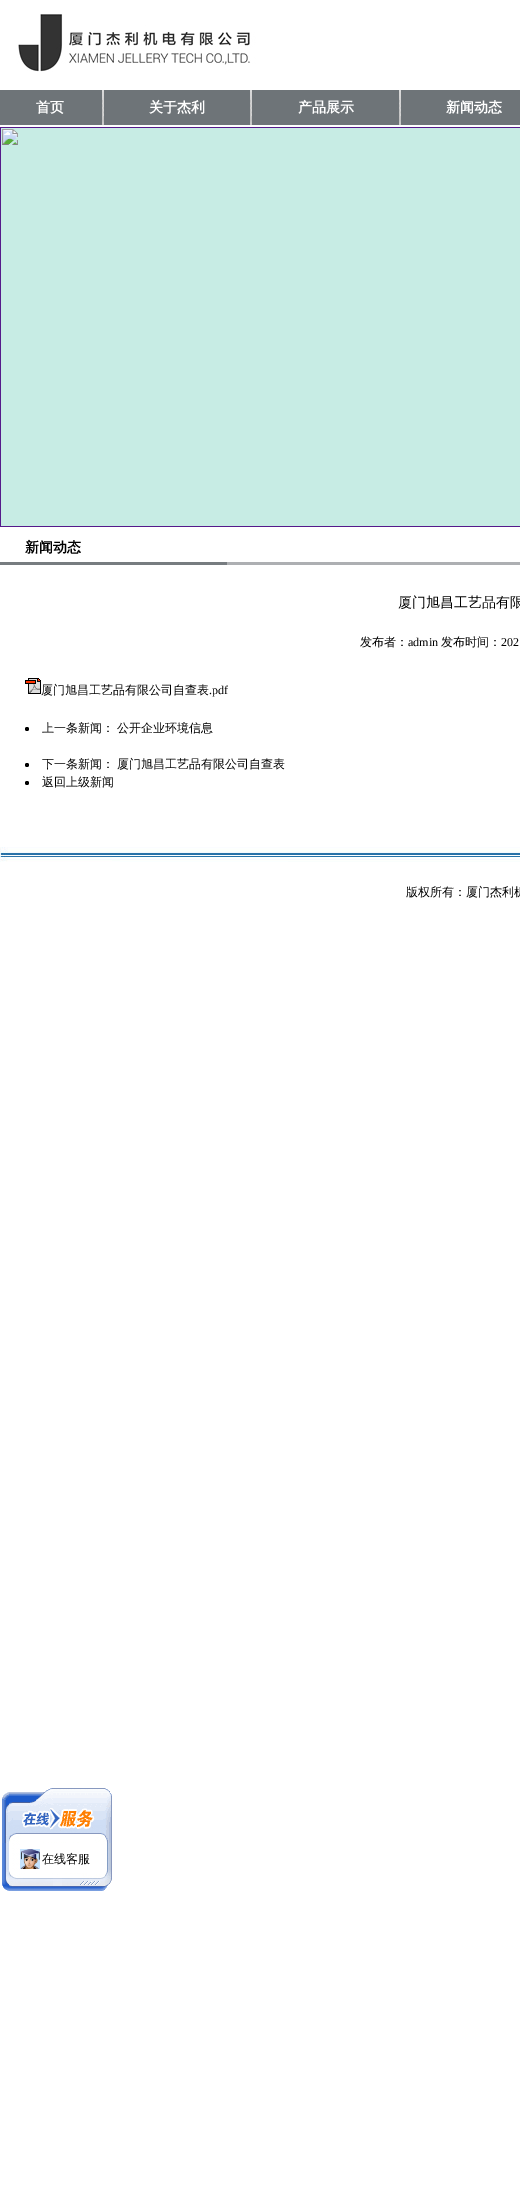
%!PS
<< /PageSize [520 2188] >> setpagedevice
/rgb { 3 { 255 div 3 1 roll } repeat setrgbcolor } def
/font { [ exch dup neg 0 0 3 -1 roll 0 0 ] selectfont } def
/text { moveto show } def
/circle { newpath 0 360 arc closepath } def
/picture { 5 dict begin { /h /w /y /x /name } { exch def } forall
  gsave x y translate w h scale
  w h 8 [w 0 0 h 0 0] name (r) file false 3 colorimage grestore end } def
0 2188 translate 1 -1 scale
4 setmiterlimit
255 255 255 rgb
0 0 520 2188 rectfill
(img_01.rgb) 0 14 520 76 picture
110 116 120 rgb
0 90 520 35 rectfill
(img_02.rgb) 102 90 2 35 picture
(img_02.rgb) 250 90 2 35 picture
(img_02.rgb) 399 90 2 35 picture
199 236 228 rgb
1 128 519 398 rectfill
(img_03.rgb) 0 127 520 400 picture
119 124 128 rgb
0 562 227 3 rectfill
173 175 178 rgb
227 562 293 3 rectfill
(img_04.rgb) 25 678 16 16 picture
0 0 0 rgb
27 729 2 circle fill
27 765 2 circle fill
27 783 2 circle fill
(img_05.rgb) 0 847 520 15 picture
(img_06.rgb) 2 1788 110 55 picture
(img_07.rgb) 2 1843 110 27 picture
(img_08.rgb) 20 1849 20 20 picture
(img_09.rgb) 2 1870 110 21 picture
/WenQuanYiZenHei-Bold 14 font
255 255 255 rgb
(首页) 36 112 text
(关于杰利) 149 112 text
(产品展示) 298 112 text
(新闻动态) 446 112 text
0 0 0 rgb
(新闻动态) 25 552 text
/WenQuanYiZenHei-Medium 14 font
(厦门旭昌工艺品有限) 398 607 text
/WenQuanYiZenHei-Medium 12 font
(发布者：) 360 646 text
/LiberationSerif-Regular 12 font
(admin) 408 646 text
/WenQuanYiZenHei-Medium 12 font
(发布时间：) 441 646 text
/LiberationSerif-Regular 12 font
(202) 501 646 text
/WenQuanYiZenHei-Medium 12 font
(厦门旭昌工艺品有限公司自查表) 41 694 text
/LiberationSerif-Regular 12 font
(.pdf) 209 694 text
/WenQuanYiZenHei-Medium 12 font
(上一条新闻：) 42 732 text
(公开企业环境信息) 117 732 text
(下一条新闻：) 42 768 text
(厦门旭昌工艺品有限公司自查表) 117 768 text
(返回上级新闻) 42 786 text
(版权所有：厦门杰利机) 406 896 text
(在线客服) 42 1863 text
showpage
